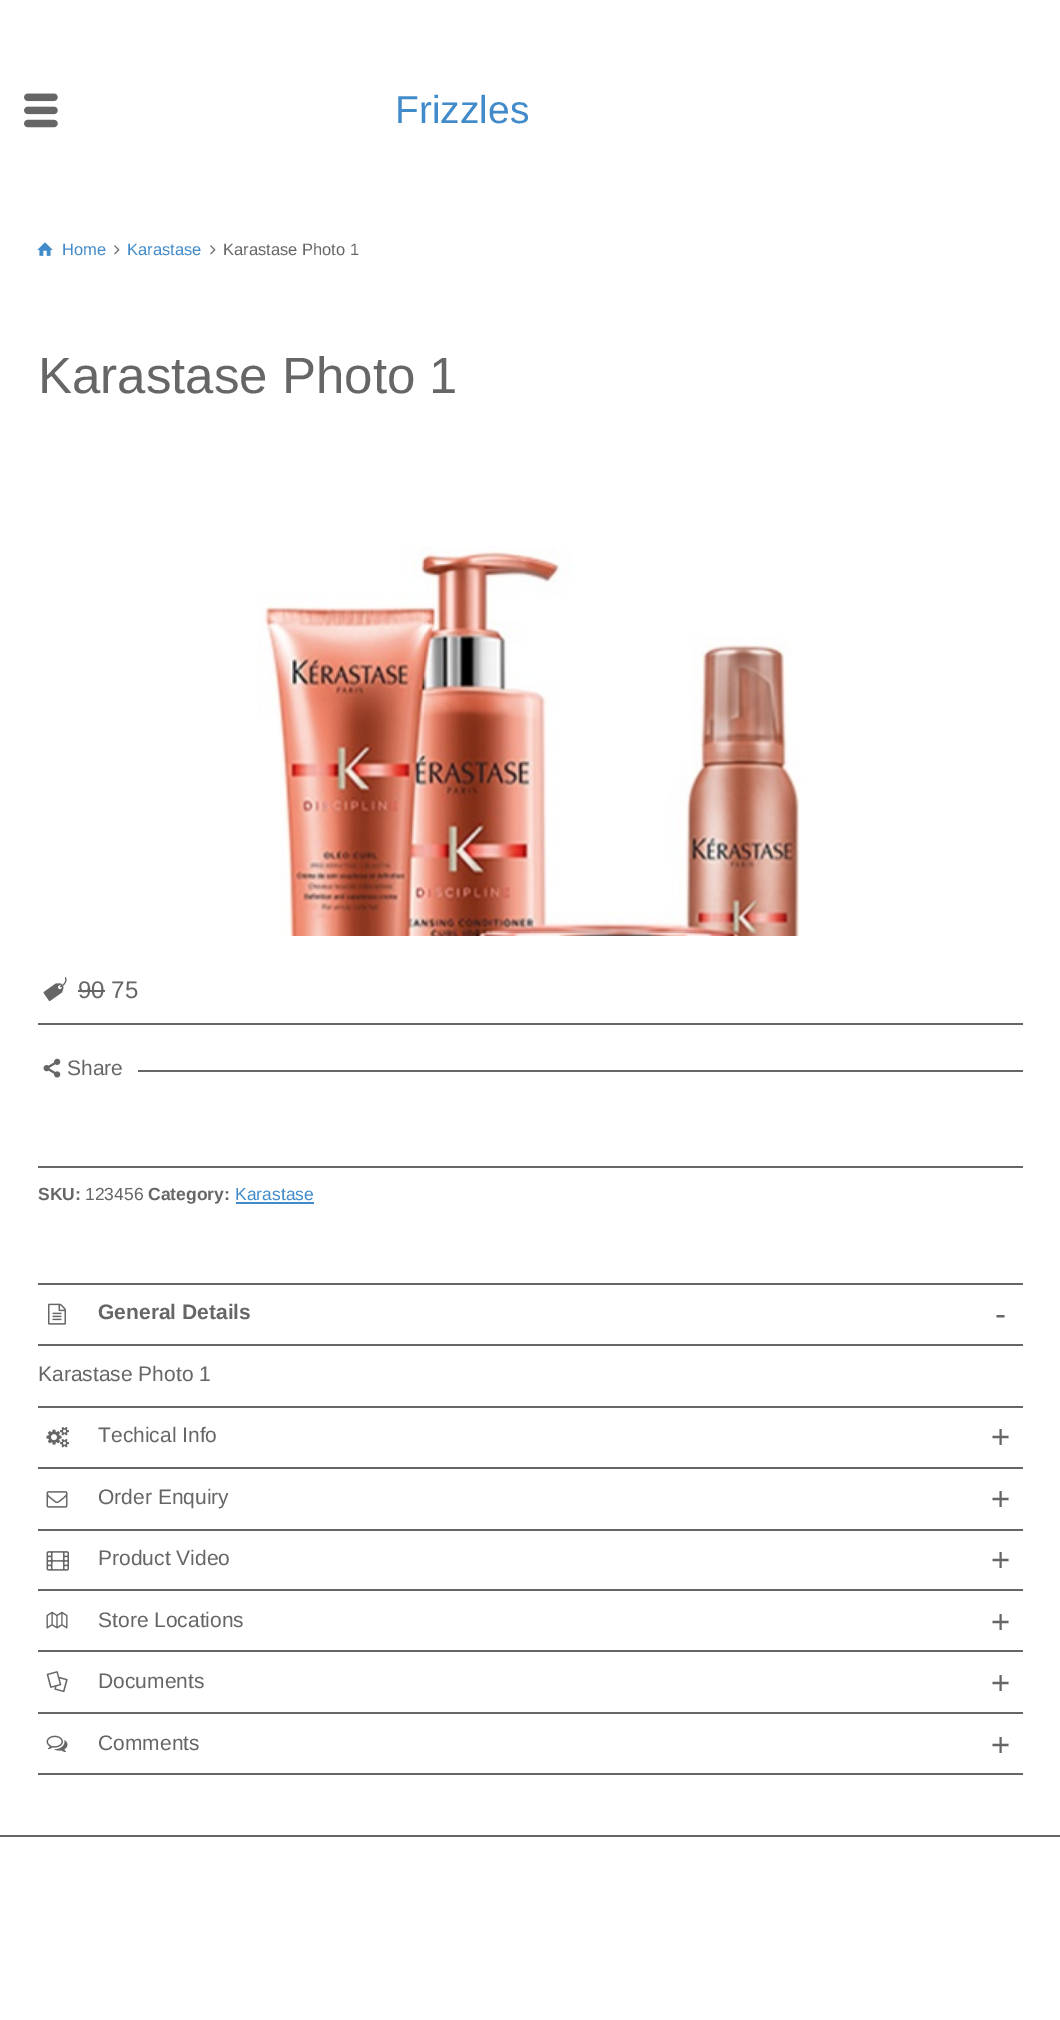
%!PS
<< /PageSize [1060 2020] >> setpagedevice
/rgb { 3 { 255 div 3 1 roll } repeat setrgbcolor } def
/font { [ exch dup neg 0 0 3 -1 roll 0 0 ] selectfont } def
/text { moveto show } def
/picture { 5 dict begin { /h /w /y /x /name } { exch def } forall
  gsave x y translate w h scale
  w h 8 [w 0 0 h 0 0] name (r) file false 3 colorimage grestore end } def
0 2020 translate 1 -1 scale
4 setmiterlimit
255 255 255 rgb
0 0 1060 2020 rectfill
(img_01.rgb) 24 93 34 35 picture
(img_02.rgb) 37 242 16 14 picture
(img_03.rgb) 114 245 6 10 picture
(img_03.rgb) 210 245 6 10 picture
(img_04.rgb) 258 546 543 390 picture
102 102 102 rgb
38 1023 985 2 rectfill
(img_05.rgb) 43 977 24 25 picture
78 990 27 2 rectfill
(img_06.rgb) 43 1058 18 20 picture
138 1070 885 2 rectfill
38 1166 985 2 rectfill
66 139 202 rgb
236 1202 78 2 rectfill
102 102 102 rgb
38 1283 985 2 rectfill
38 1406 985 2 rectfill
(img_07.rgb) 48 1303 18 22 picture
38 1344 985 2 rectfill
38 1467 985 2 rectfill
(img_08.rgb) 46 1427 23 21 picture
38 1529 985 2 rectfill
(img_09.rgb) 46 1491 22 17 picture
38 1589 985 2 rectfill
(img_10.rgb) 46 1551 23 20 picture
38 1650 985 2 rectfill
(img_11.rgb) 46 1611 22 18 picture
38 1712 985 2 rectfill
(img_12.rgb) 46 1671 22 22 picture
38 1773 985 2 rectfill
(img_13.rgb) 46 1735 22 18 picture
0 1835 1060 2 rectfill
/LiberationSans-Regular 39 font
66 139 202 rgb
(Frizzles) 395 123 text
/LiberationSans-Regular 16.5 font
(Home) 62 255 text
(Karastase) 127 255 text
102 102 102 rgb
(Karastase Photo 1) 223 255 text
/LiberationSans-Regular 51 font
(Karastase Photo 1) 38 393 text
/LiberationSans-Regular 24 font
(90 75) 78 998 text
/LiberationSans-Regular 21 font
(Share) 67 1075 text
/LiberationSans-Bold 17.5 font
(SKU:) 38 1200 text
/LiberationSans-Regular 17.5 font
(123456) 85 1200 text
/LiberationSans-Bold 17.5 font
(Category:) 148 1200 text
/LiberationSans-Regular 17.5 font
66 139 202 rgb
(Karastase) 235 1200 text
/LiberationSans-Bold 21 font
102 102 102 rgb
(General Details) 98 1319 text
/LiberationSans-Regular 33 font
(-) 995 1325 text
/LiberationSans-Regular 21 font
(Karastase Photo 1) 38 1381 text
(Techical Info) 98 1442 text
/LiberationSans-Regular 33 font
(+) 991 1448 text
/LiberationSans-Regular 21 font
(Order Enquiry) 98 1504 text
/LiberationSans-Regular 33 font
(+) 991 1510 text
/LiberationSans-Regular 21 font
(Product Video) 98 1565 text
/LiberationSans-Regular 33 font
(+) 991 1571 text
/LiberationSans-Regular 21 font
(Store Locations) 98 1627 text
/LiberationSans-Regular 33 font
(+) 991 1633 text
/LiberationSans-Regular 21 font
(Documents) 98 1688 text
/LiberationSans-Regular 33 font
(+) 991 1694 text
/LiberationSans-Regular 21 font
(Comments) 98 1750 text
/LiberationSans-Regular 33 font
(+) 991 1756 text
showpage
